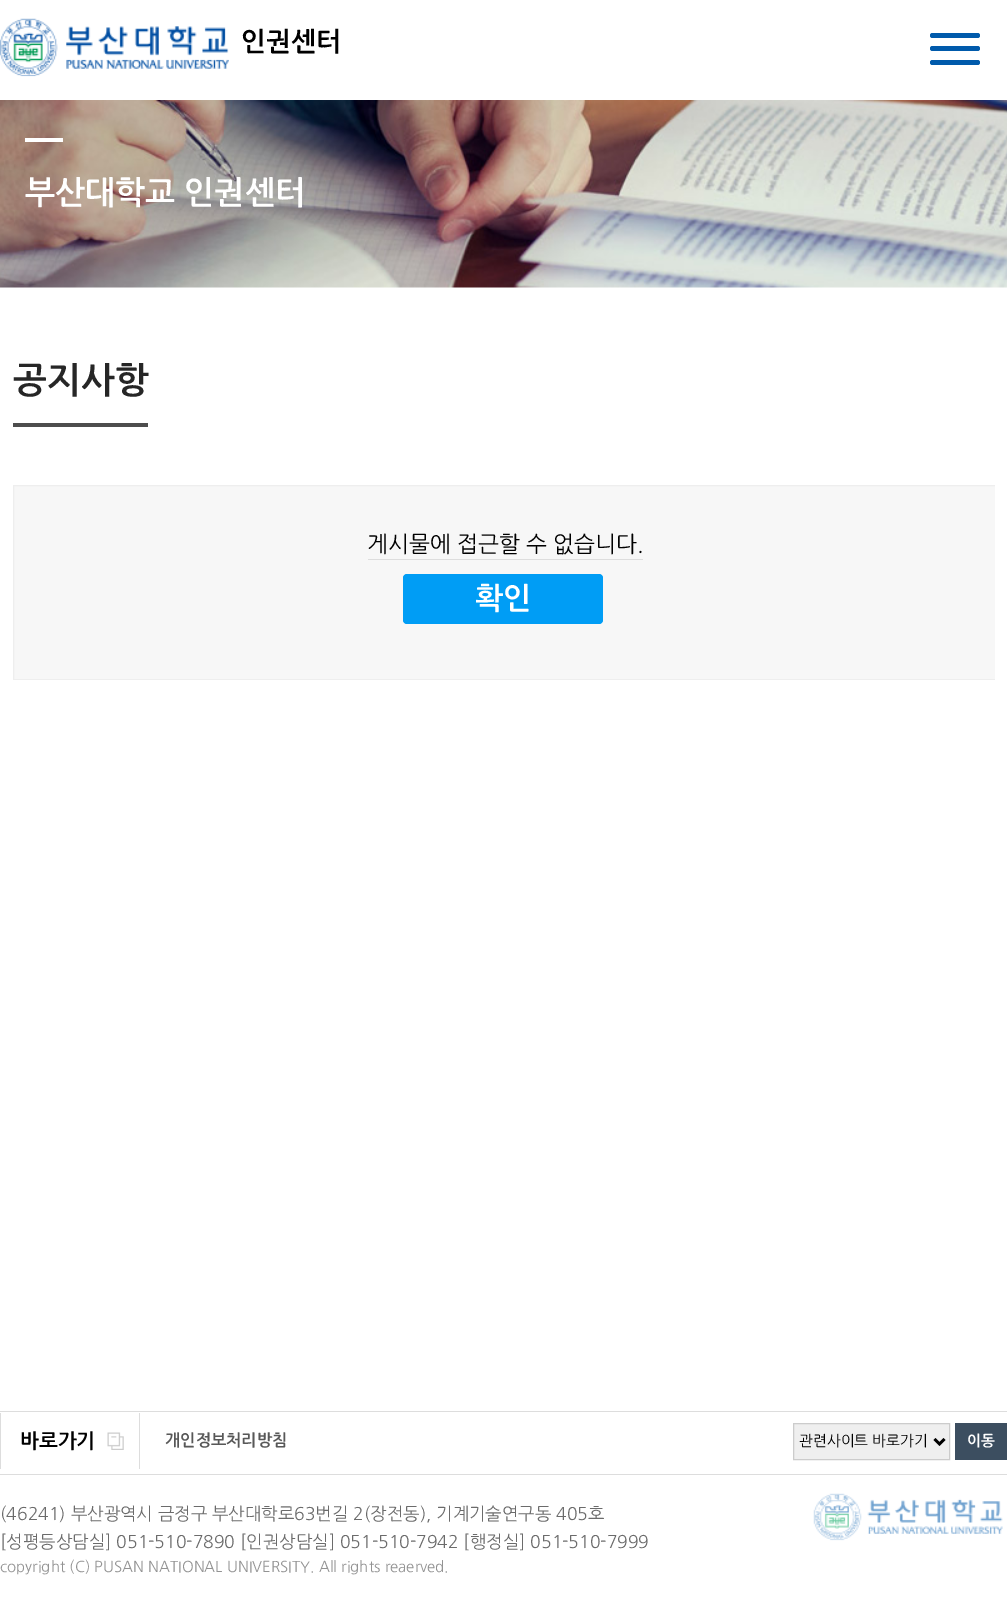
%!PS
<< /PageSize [1007 1605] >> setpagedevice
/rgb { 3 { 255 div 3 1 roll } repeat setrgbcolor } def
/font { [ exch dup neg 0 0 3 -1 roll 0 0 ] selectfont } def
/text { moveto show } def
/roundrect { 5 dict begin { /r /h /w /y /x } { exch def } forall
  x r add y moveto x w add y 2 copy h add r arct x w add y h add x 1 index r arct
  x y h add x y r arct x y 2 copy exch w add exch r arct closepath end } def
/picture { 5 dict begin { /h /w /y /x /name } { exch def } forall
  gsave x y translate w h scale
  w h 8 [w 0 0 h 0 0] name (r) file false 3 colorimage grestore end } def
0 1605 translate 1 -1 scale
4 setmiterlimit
255 255 255 rgb
0 0 1007 1605 rectfill
(img_01.rgb) 0 18 229 59 picture
0 90 171 rgb
930 33 50 5 2.5 roundrect fill
930 46 50 5 2.5 roundrect fill
930 60 50 5 2.5 roundrect fill
(img_02.rgb) 0 100 1007 188 picture
255 255 255 rgb
25 138 38 4 rectfill
77 77 77 rgb
13 423 135 4 rectfill
247 247 247 rgb
14 486 981 193 rectfill
gsave
13 485 982 195 rectclip
238 238 238 rgb
13.5 485.5 984 194 rectstroke
grestore
221 221 221 rgb
368 559 275 1 rectfill
0 157 245 rgb
403 574 200 50 4 roundrect fill
221 221 221 rgb
0 1411 1007 1 rectfill
0 1474 1007 1 rectfill
(img_03.rgb) 107 1432 17 18 picture
139 1413 1 56 rectfill
0 1413 1 56 rectfill
239 239 239 rgb
793.5 1423.5 moveto 156 0 rlineto 0 36 rlineto -156 0 rlineto closepath gsave fill grestore
204 204 204 rgb
stroke
0 0 0 rgb
2.5 setlinewidth
934.5 1439 moveto 5 5 rlineto 5 -5 rlineto stroke
60 78 96 rgb
955 1423 52 37 rectfill
(img_04.rgb) 813 1493 190 48 picture
/NanumGothic-Bold 26.5 font
0 0 0 rgb
(인권센터) 241 51 text
/NanumGothic-Bold 32 font
255 255 255 rgb
(부산대학교 인권센터) 25 204 text
gsave
13 363 982 85 rectclip
/NanumGothic-Bold 36 font
38 38 38 rgb
(공지사항) 13 393 text
grestore
/NanumGothic-Regular 22.25 font
0 0 0 rgb
(게시물에 접근할 수 없습니다.) 367 552 text
/NanumGothic-Bold 30 font
255 255 255 rgb
(확인) 475 609 text
/NanumGothic-Bold 20 font
0 0 0 rgb
(바로가기) 20 1448 text
/NanumGothic-Bold 16.25 font
88 88 88 rgb
(개인정보처리방침) 165 1446 text
/NanumGothic-Regular 14.75 font
0 0 0 rgb
(관련사이트 바로가기) 799 1446 text
/NanumGothic-Bold 14.75 font
255 255 255 rgb
(이동) 967 1446 text
/NanumGothic-Regular 17.5 font
107 107 107 rgb
(\(46241\) 부산광역시 금정구 부산대학로63번길 2\(장전동\), 기계기술연구동 405호) 0 1520 text
([성평등상담실] 051-510-7890 [인권상담실] 051-510-7942 [행정실] 051-510-7999) 0 1548 text
/NanumGothic-Regular 15 font
147 147 147 rgb
(copyright \(C\) PUSAN NATIONAL UNIVERSITY. All rights reaerved.) 0 1572 text
showpage
